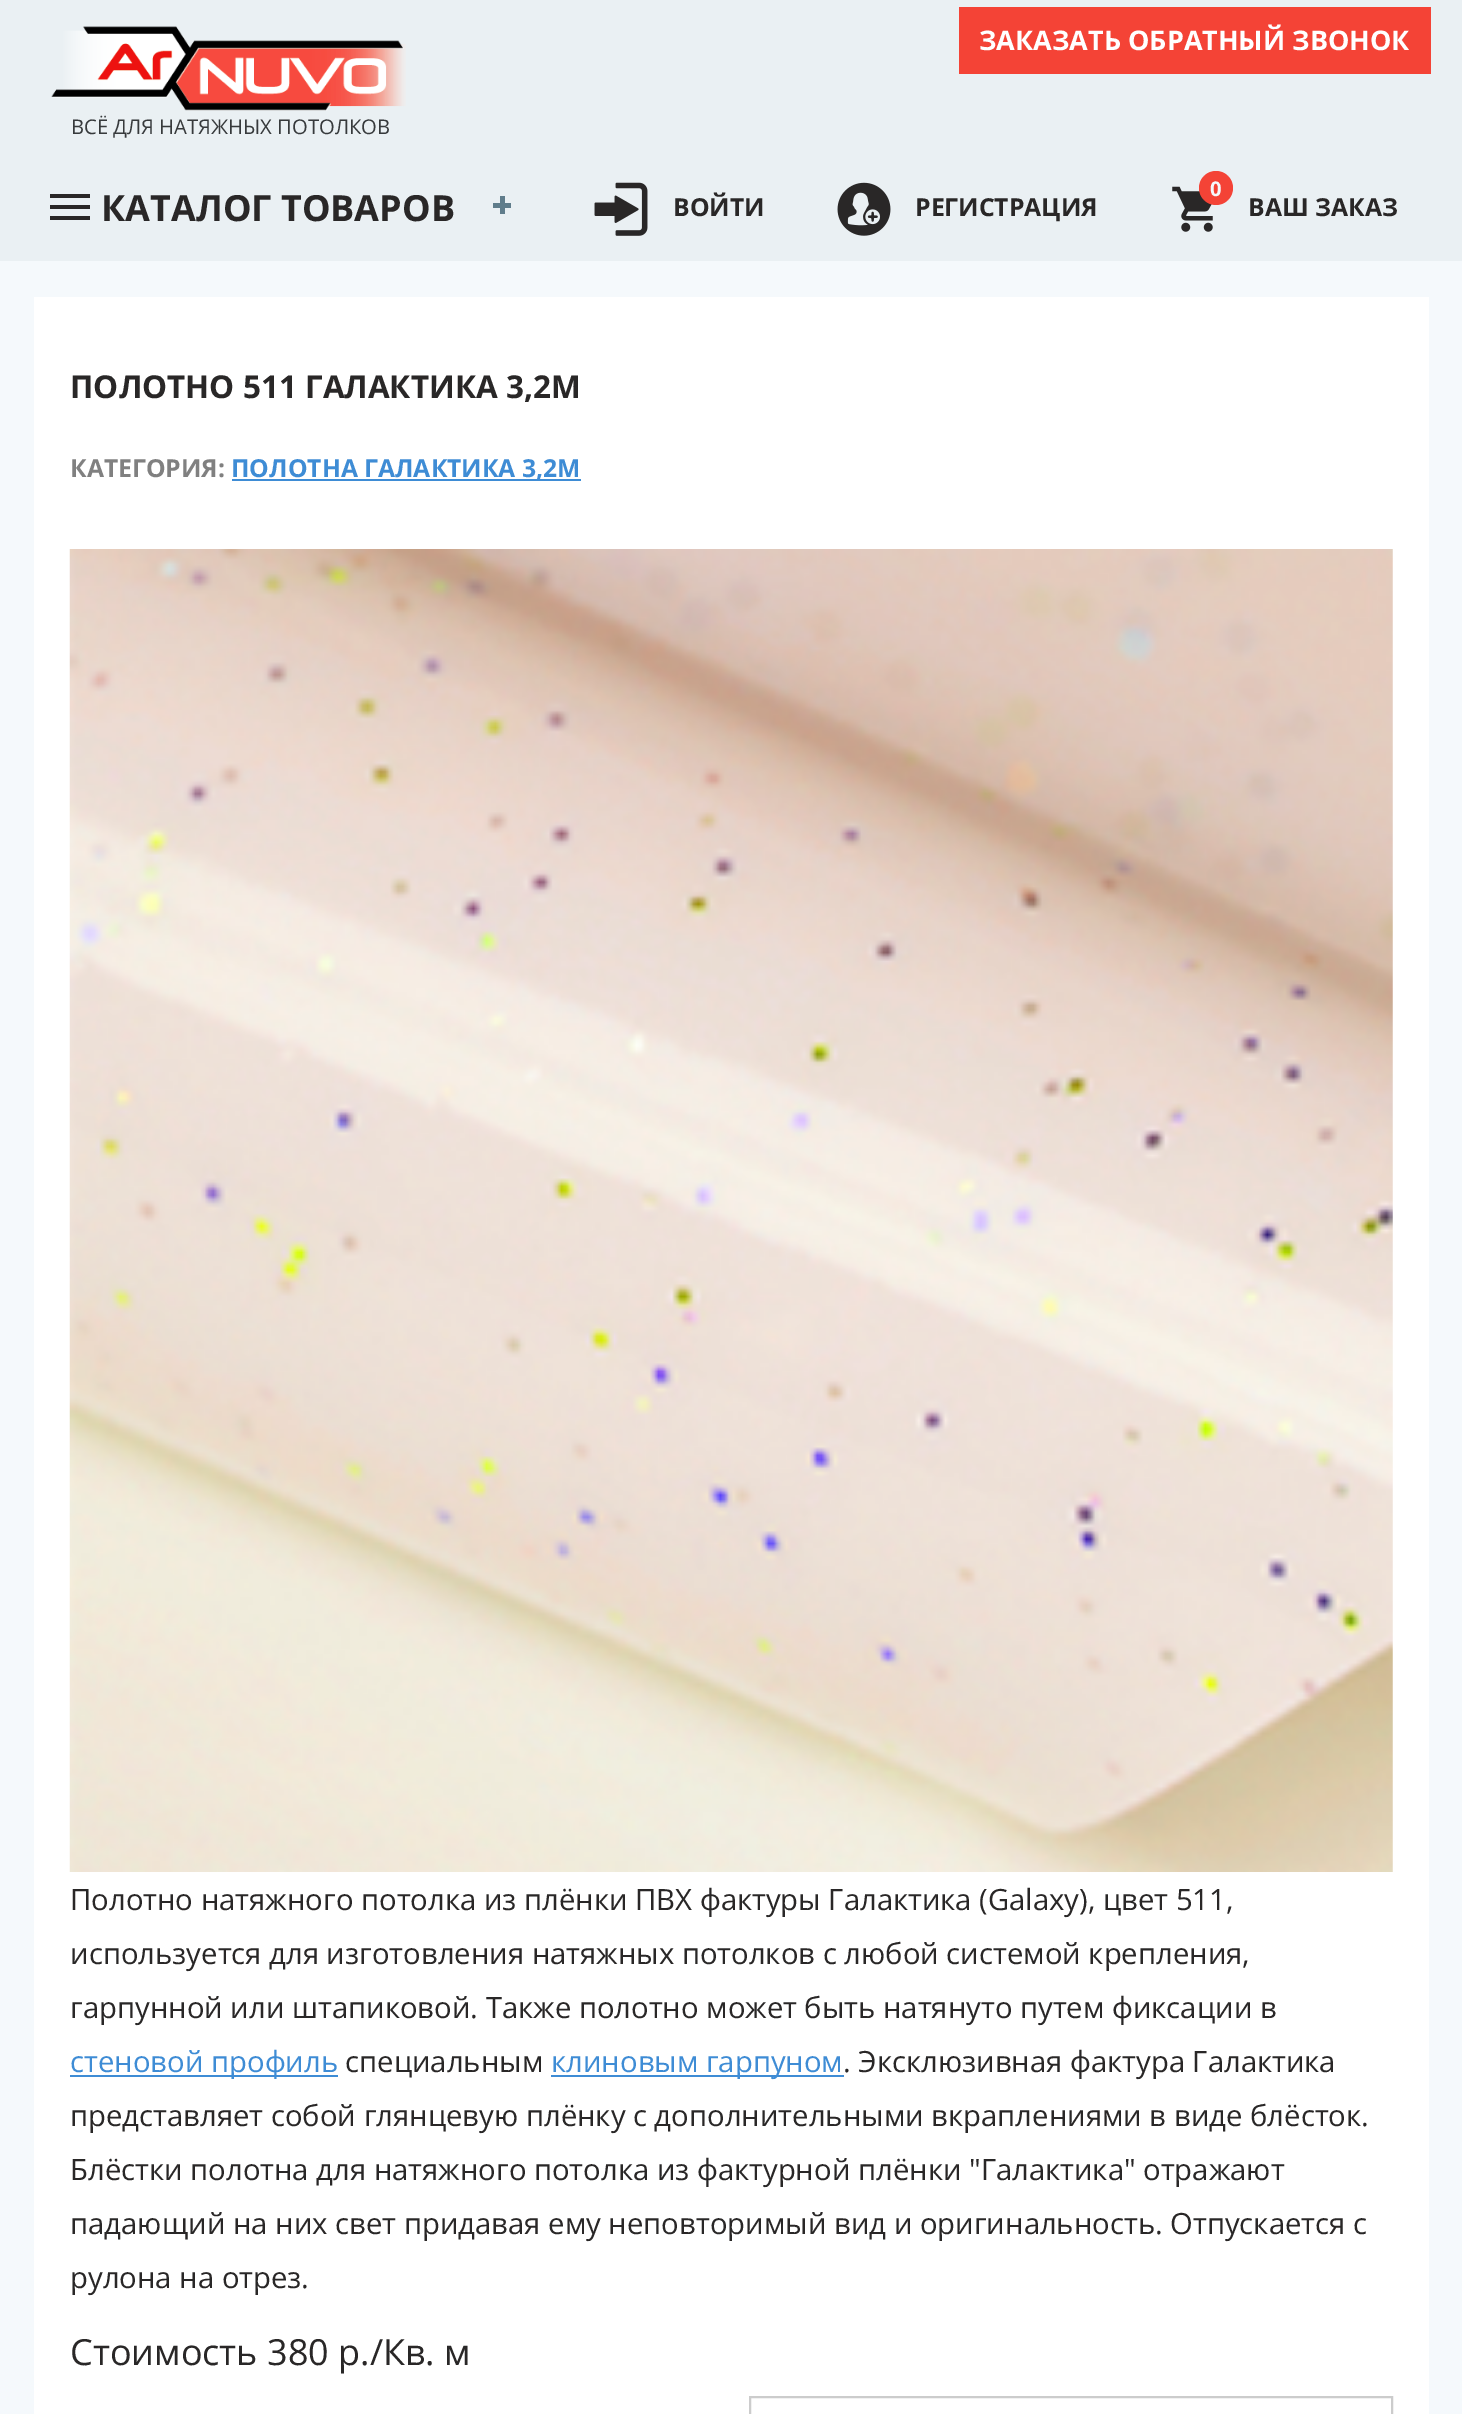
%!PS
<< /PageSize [1462 2414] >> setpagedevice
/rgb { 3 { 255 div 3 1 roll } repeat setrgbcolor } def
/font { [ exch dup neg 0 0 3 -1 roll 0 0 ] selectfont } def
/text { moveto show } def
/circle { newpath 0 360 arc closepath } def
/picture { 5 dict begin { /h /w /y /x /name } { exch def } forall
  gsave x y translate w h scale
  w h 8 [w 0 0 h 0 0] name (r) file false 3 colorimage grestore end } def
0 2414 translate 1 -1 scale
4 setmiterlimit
245 249 252 rgb
0 0 1462 2414 rectfill
234 240 243 rgb
0 0 1462 261 rectfill
244 67 54 rgb
959 7 472 67 rectfill
(img_01.rgb) 51 26 355 85 picture
41 39 39 rgb
50 220 moveto 40 0 rlineto 0 -4 rlineto -40 0 rlineto closepath 50 209 moveto 40 0 rlineto 0 -4 rlineto -40 0 rlineto closepath 50 194 moveto 0 4 rlineto 40 0 rlineto 0 -4 rlineto closepath fill
96 125 139 rgb
500 196 5 18 rectfill
493 203 18 5 rectfill
(img_02.rgb) 594 182 54 54 picture
(img_03.rgb) 837 182 54 54 picture
(img_04.rgb) 1172 186 41 46 picture
244 67 54 rgb
1216 188 17 circle fill
255 255 255 rgb
34 297 1395 2117 rectfill
62 140 213 rgb
232 479 349 2 rectfill
(img_05.rgb) 69 549 1324 1323 picture
70 2075 268 2 rectfill
551 2075 293 2 rectfill
204 204 204 rgb
2 setlinewidth
750 2397 642 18 rectstroke
/OpenSans-Bold 27 font
255 255 255 rgb
(ЗАКАЗАТЬ ОБРАТНЫЙ ЗВОНОК) 979 50 text
/OpenSans-Regular 20.25 font
55 58 60 rgb
(ВСЁ ДЛЯ НАТЯЖНЫХ ПОТОЛКОВ) 71 134 text
/OpenSans-Bold 36 font
41 39 39 rgb
(КАТАЛОГ ТОВАРОВ) 101 221 text
/OpenSans-Bold 24.75 font
(ВОЙТИ) 673 216 text
(РЕГИСТРАЦИЯ) 915 216 text
/OpenSans-Bold 20.25 font
245 249 252 rgb
(0) 1210 196 text
/OpenSans-Bold 24.75 font
41 39 39 rgb
(ВАШ ЗАКАЗ) 1248 216 text
/OpenSans-Bold 31.5 font
(ПОЛОТНО 511 ГАЛАКТИКА 3,2М) 70 398 text
/OpenSans-Bold 24.75 font
128 128 128 rgb
(КАТЕГОРИЯ:) 70 477 text
62 140 213 rgb
(ПОЛОТНА ГАЛАКТИКА 3,2М) 231 477 text
/OpenSans-Regular 29.25 font
41 39 39 rgb
(Полотно натяжного потолка из плёнки ПВХ фактуры Галактика \(Galaxy\), цвет 511,) 70 1910 text
(используется для изготовления натяжных потолков с любой системой крепления,) 70 1964 text
(гарпунной или штапиковой. Также полотно может быть натянуто путем фиксации в) 70 2018 text
62 140 213 rgb
(стеновой профиль) 70 2072 text
41 39 39 rgb
(специальным) 345 2072 text
62 140 213 rgb
(клиновым гарпуном) 551 2072 text
41 39 39 rgb
(. Эксклюзивная фактура Галактика) 843 2072 text
(представляет собой глянцевую плёнку с дополнительными вкраплениями в виде блёсток.) 70 2126 text
(Блёстки полотна для натяжного потолка из фактурной плёнки "Галактика" отражают) 70 2180 text
(падающий на них свет придавая ему неповторимый вид и оригинальность. Отпускается с) 70 2234 text
(рулона на отрез.) 70 2288 text
/OpenSans-Regular 36 font
(Стоимость 380 р./Кв. м) 70 2365 text
showpage
